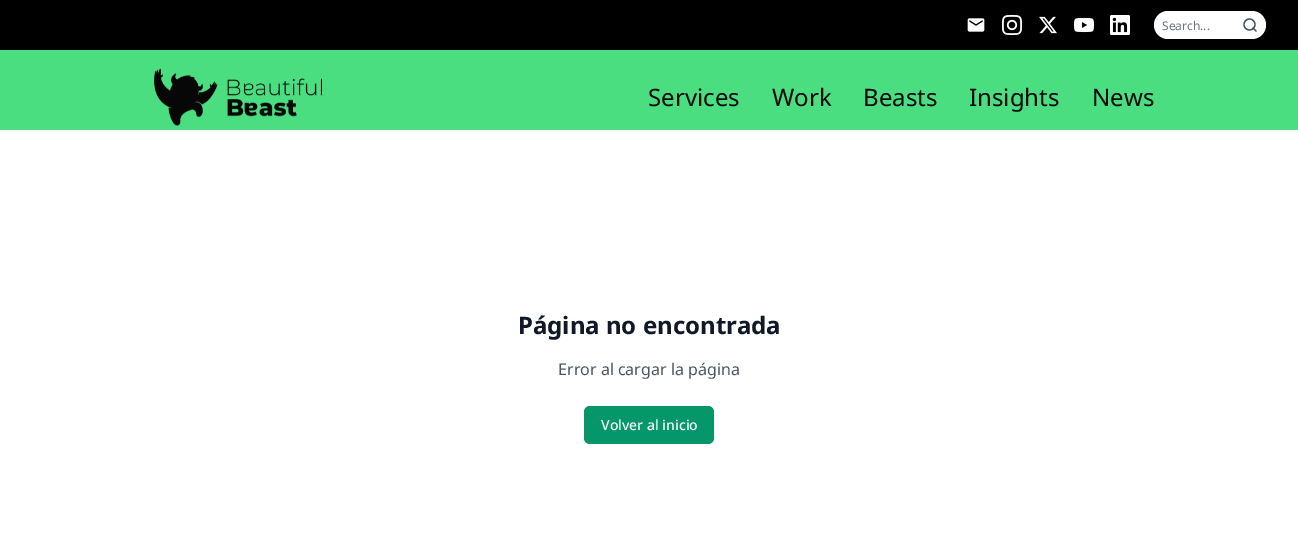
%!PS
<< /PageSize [1298 533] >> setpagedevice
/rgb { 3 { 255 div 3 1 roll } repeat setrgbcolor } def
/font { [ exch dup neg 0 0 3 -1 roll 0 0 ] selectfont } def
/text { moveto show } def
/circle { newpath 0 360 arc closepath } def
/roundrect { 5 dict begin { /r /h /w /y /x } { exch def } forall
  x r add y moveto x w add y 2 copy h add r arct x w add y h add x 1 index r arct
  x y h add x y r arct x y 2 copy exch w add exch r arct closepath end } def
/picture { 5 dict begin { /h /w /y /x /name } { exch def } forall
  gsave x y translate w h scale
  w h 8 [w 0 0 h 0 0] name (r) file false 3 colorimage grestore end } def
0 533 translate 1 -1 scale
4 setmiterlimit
255 255 255 rgb
0 0 1298 533 rectfill
0 0 0 rgb
0 0 1298 50 rectfill
(img_01.rgb) 967 18 18 14 picture
(img_02.rgb) 1002 15 20 20 picture
(img_03.rgb) 1039 16 18 18 picture
(img_04.rgb) 1074 17 20 16 picture
(img_05.rgb) 1110 15 20 20 picture
255 255 255 rgb
1154 11 112 28 14 roundrect fill
75 85 99 rgb
1.3 setlinewidth
1249.5 24.5 5.5 circle stroke
1 setlinecap
1 setlinejoin
1256 31 moveto -3 -3 rlineto stroke
74 222 128 rgb
0 50 1298 80 rectfill
(img_06.rgb) 154 68 168 58 picture
5 150 105 rgb
584 406 130 38 6 roundrect fill
/NotoSans-Regular 12 font
107 114 128 rgb
(Search...) 1162 30 text
/NotoSans-Regular 24 font
9 9 11 rgb
(Services) 648 106 text
(Work) 772 106 text
(Beasts) 863 106 text
(Insights) 969 106 text
(News) 1092 106 text
/NotoSans-Bold 24 font
17 24 39 rgb
(Página no encontrada) 518 334 text
/NotoSans-Regular 16 font
75 85 99 rgb
(Error al cargar la página) 558 375 text
/NotoSans-Medium 14 font
255 255 255 rgb
(Volver al inicio) 601 430 text
showpage
